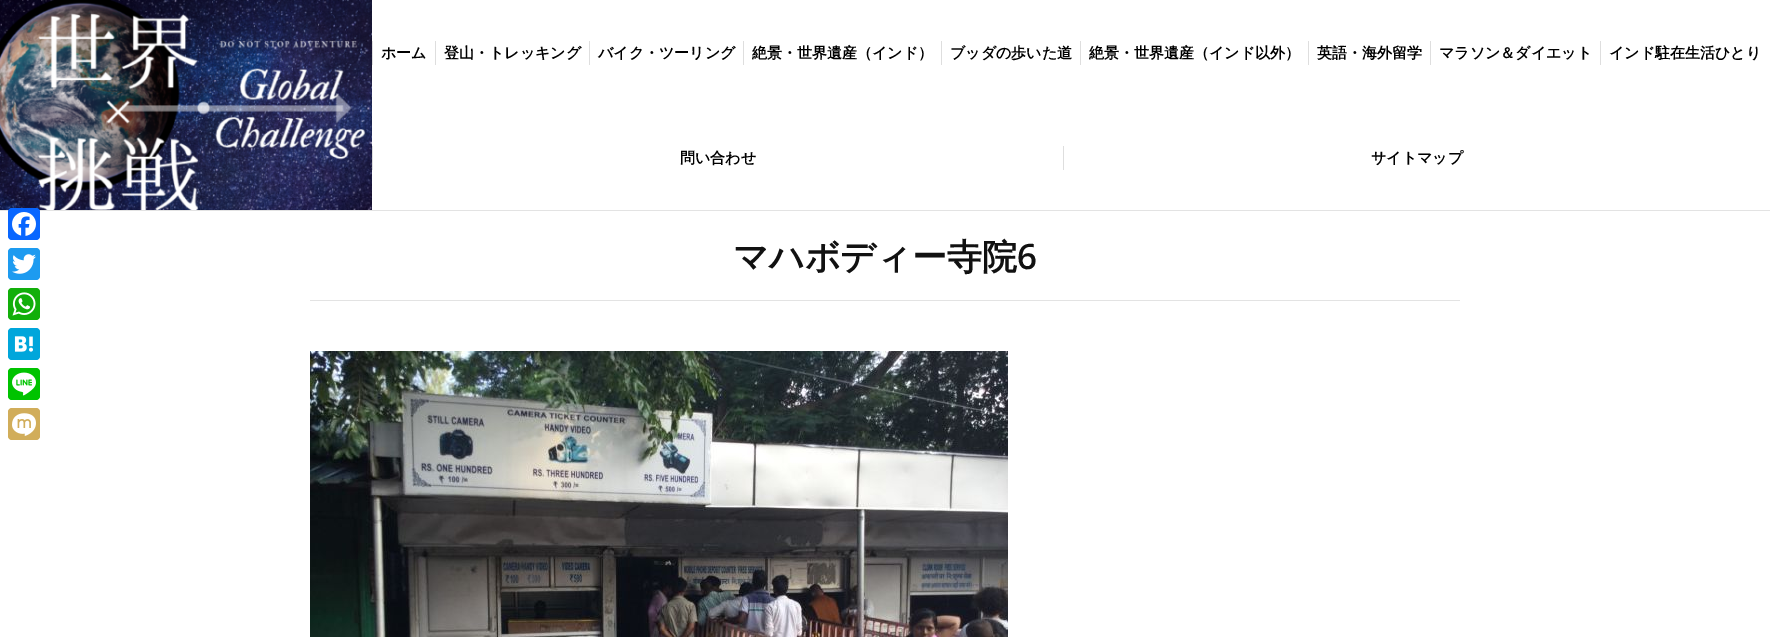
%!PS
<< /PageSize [1770 637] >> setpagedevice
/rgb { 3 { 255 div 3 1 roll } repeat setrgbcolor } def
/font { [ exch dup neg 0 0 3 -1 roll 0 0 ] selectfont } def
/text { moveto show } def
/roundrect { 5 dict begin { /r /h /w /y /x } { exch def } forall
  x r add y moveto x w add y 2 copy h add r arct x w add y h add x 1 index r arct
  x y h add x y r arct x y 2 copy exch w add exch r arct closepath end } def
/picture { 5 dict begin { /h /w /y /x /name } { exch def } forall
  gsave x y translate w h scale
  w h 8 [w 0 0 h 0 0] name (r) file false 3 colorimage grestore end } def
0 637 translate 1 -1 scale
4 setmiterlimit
255 255 255 rgb
0 0 1770 637 rectfill
227 227 227 rgb
0 210 1770 1 rectfill
(img_01.rgb) 0 0 372 210 picture
222 222 222 rgb
372 41 1 24 rectfill
435 41 1 24 rectfill
589 41 1 24 rectfill
743 41 1 24 rectfill
941 41 1 24 rectfill
1080 41 1 24 rectfill
1308 41 1 24 rectfill
1430 41 1 24 rectfill
1600 41 1 24 rectfill
372 146 1 24 rectfill
1063 146 1 24 rectfill
227 227 227 rgb
310 300 1150 1 rectfill
(img_02.rgb) 310 351 698 286 picture
8 102 255 rgb
8 208 32 32 4 roundrect fill
(img_03.rgb) 12 212 24 24 picture
29 155 240 rgb
8 248 32 32 4 roundrect fill
(img_04.rgb) 12 254 24 20 picture
18 175 10 rgb
8 288 32 32 4 roundrect fill
(img_05.rgb) 12 292 24 24 picture
0 166 219 rgb
8 328 32 32 4 roundrect fill
(img_06.rgb) 14 336 19 16 picture
0 195 0 rgb
8 368 32 32 4 roundrect fill
(img_07.rgb) 12 372 24 24 picture
209 173 90 rgb
8 408 32 32 4 roundrect fill
(img_08.rgb) 12 413 24 23 picture
/WenQuanYiZenHei-Bold 15 font
0 0 0 rgb
(ホーム) 381 58 text
(登山・トレッキング) 444 58 text
(バイク・ツーリング) 598 58 text
(絶景・世界遺産（インド）) 752 58 text
(ブッダの歩いた道) 950 58 text
(絶景・世界遺産（インド以外）) 1089 58 text
(英語・海外留学) 1317 58 text
(マラソン＆ダイエット) 1439 58 text
(インド駐在生活ひとり) 1609 58 text
(問い合わせ) 680 163 text
(サイトマップ) 1371 163 text
/WenQuanYiZenHei-Bold 35 font
17 17 17 rgb
(マハボディー寺院) 733 269 text
/OpenSans-SemiBold 35 font
(6) 1017 269 text
showpage
